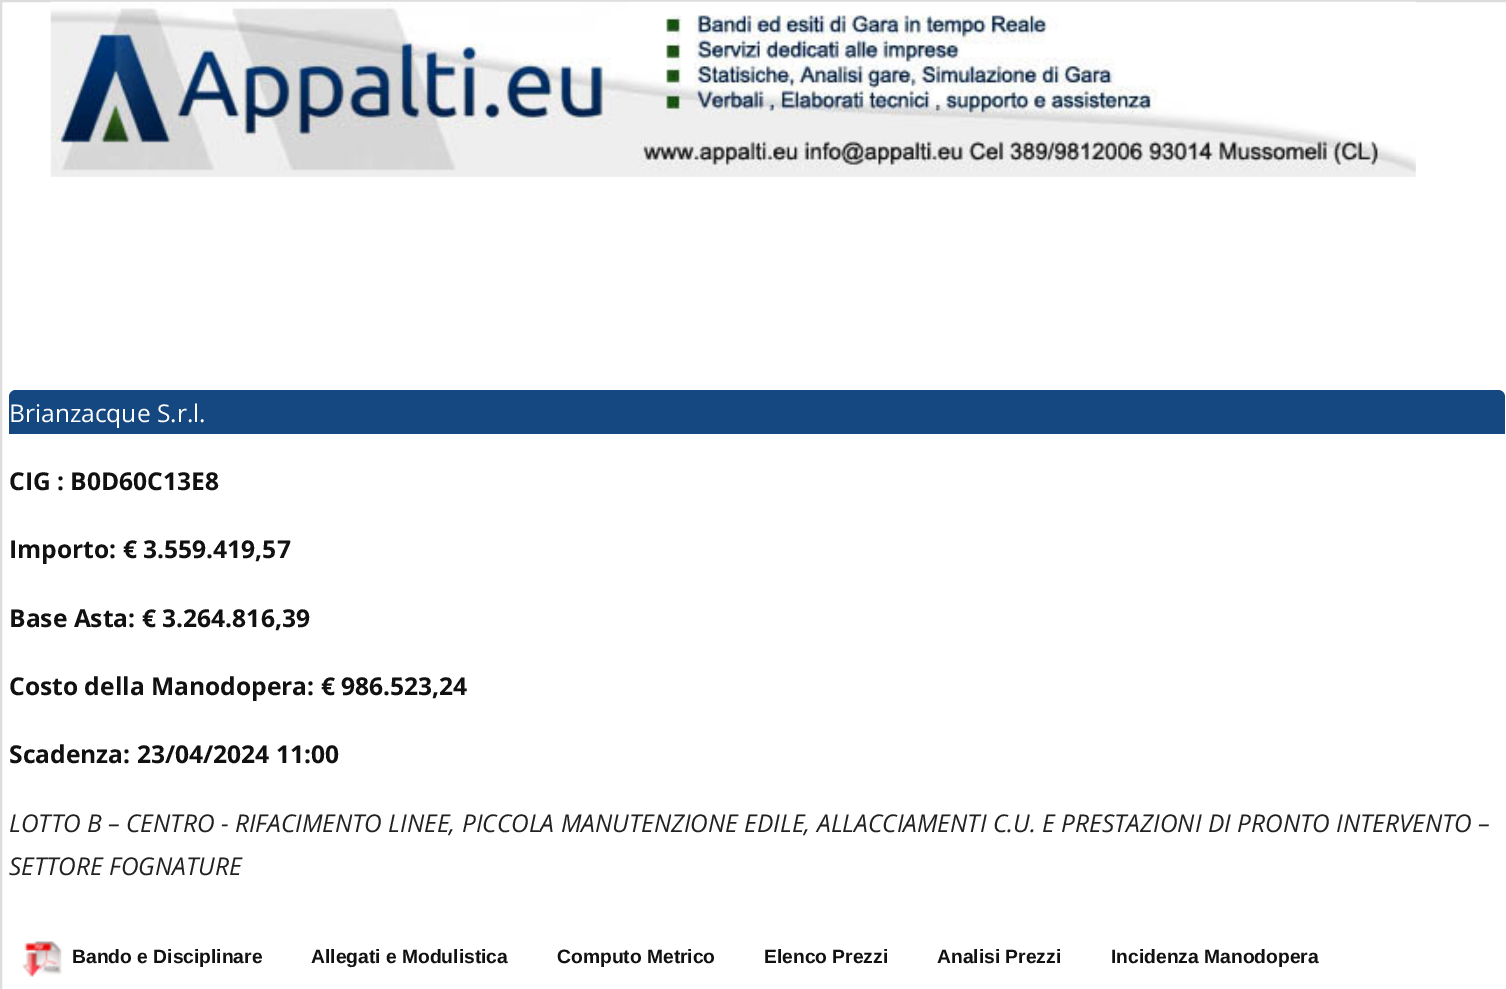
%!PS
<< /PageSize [1506 989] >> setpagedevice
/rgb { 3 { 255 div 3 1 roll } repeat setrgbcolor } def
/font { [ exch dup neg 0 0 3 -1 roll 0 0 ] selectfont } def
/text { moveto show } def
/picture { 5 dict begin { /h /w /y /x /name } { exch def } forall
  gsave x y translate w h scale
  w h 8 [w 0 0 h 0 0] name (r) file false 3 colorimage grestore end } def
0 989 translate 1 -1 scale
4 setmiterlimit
255 255 255 rgb
0 0 1506 989 rectfill
221 221 221 rgb
2 setlinewidth
1 1 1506 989 rectstroke
(img_01.rgb) 50 1 1366 176 picture
21 71 128 rgb
16 390 moveto 1482 0 rlineto 4 0 7 3 7 7 rcurveto 0 37 rlineto -1496 0 rlineto 0 -37 rlineto 0 -4 3 -7 7 -7 rcurveto closepath fill
(img_02.rgb) 22 941 40 36 picture
/OpenSans-Regular 24.5 font
255 255 255 rgb
(Brianzacque S.r.l.) 9 422 text
/OpenSans-Bold 24.6 font
17 17 17 rgb
(CIG : B0D60C13E8) 9 490 text
(Importo: € 3.559.419,57) 9 558 text
(Base Asta: € 3.264.816,39) 9 627 text
(Costo della Manodopera: € 986.523,24) 9 695 text
(Scadenza: 23/04/2024 11:00) 9 763 text
/OpenSans-Italic 24.5 font
34 34 34 rgb
(LOTTO B – CENTRO - RIFACIMENTO LINEE, PICCOLA MANUTENZIONE EDILE, ALLACCIAMENTI C.U. E PRESTAZIONI DI PRONTO INTERVENTO –) 9 832 text
(SETTORE FOGNATURE) 9 875 text
/LiberationSans-Bold 19.25 font
17 17 17 rgb
(Bando e Disciplinare) 72 963 text
(Allegati e Modulistica) 311 963 text
(Computo Metrico) 557 963 text
(Elenco Prezzi) 764 963 text
(Analisi Prezzi) 937 963 text
(Incidenza Manodopera) 1111 963 text
showpage
